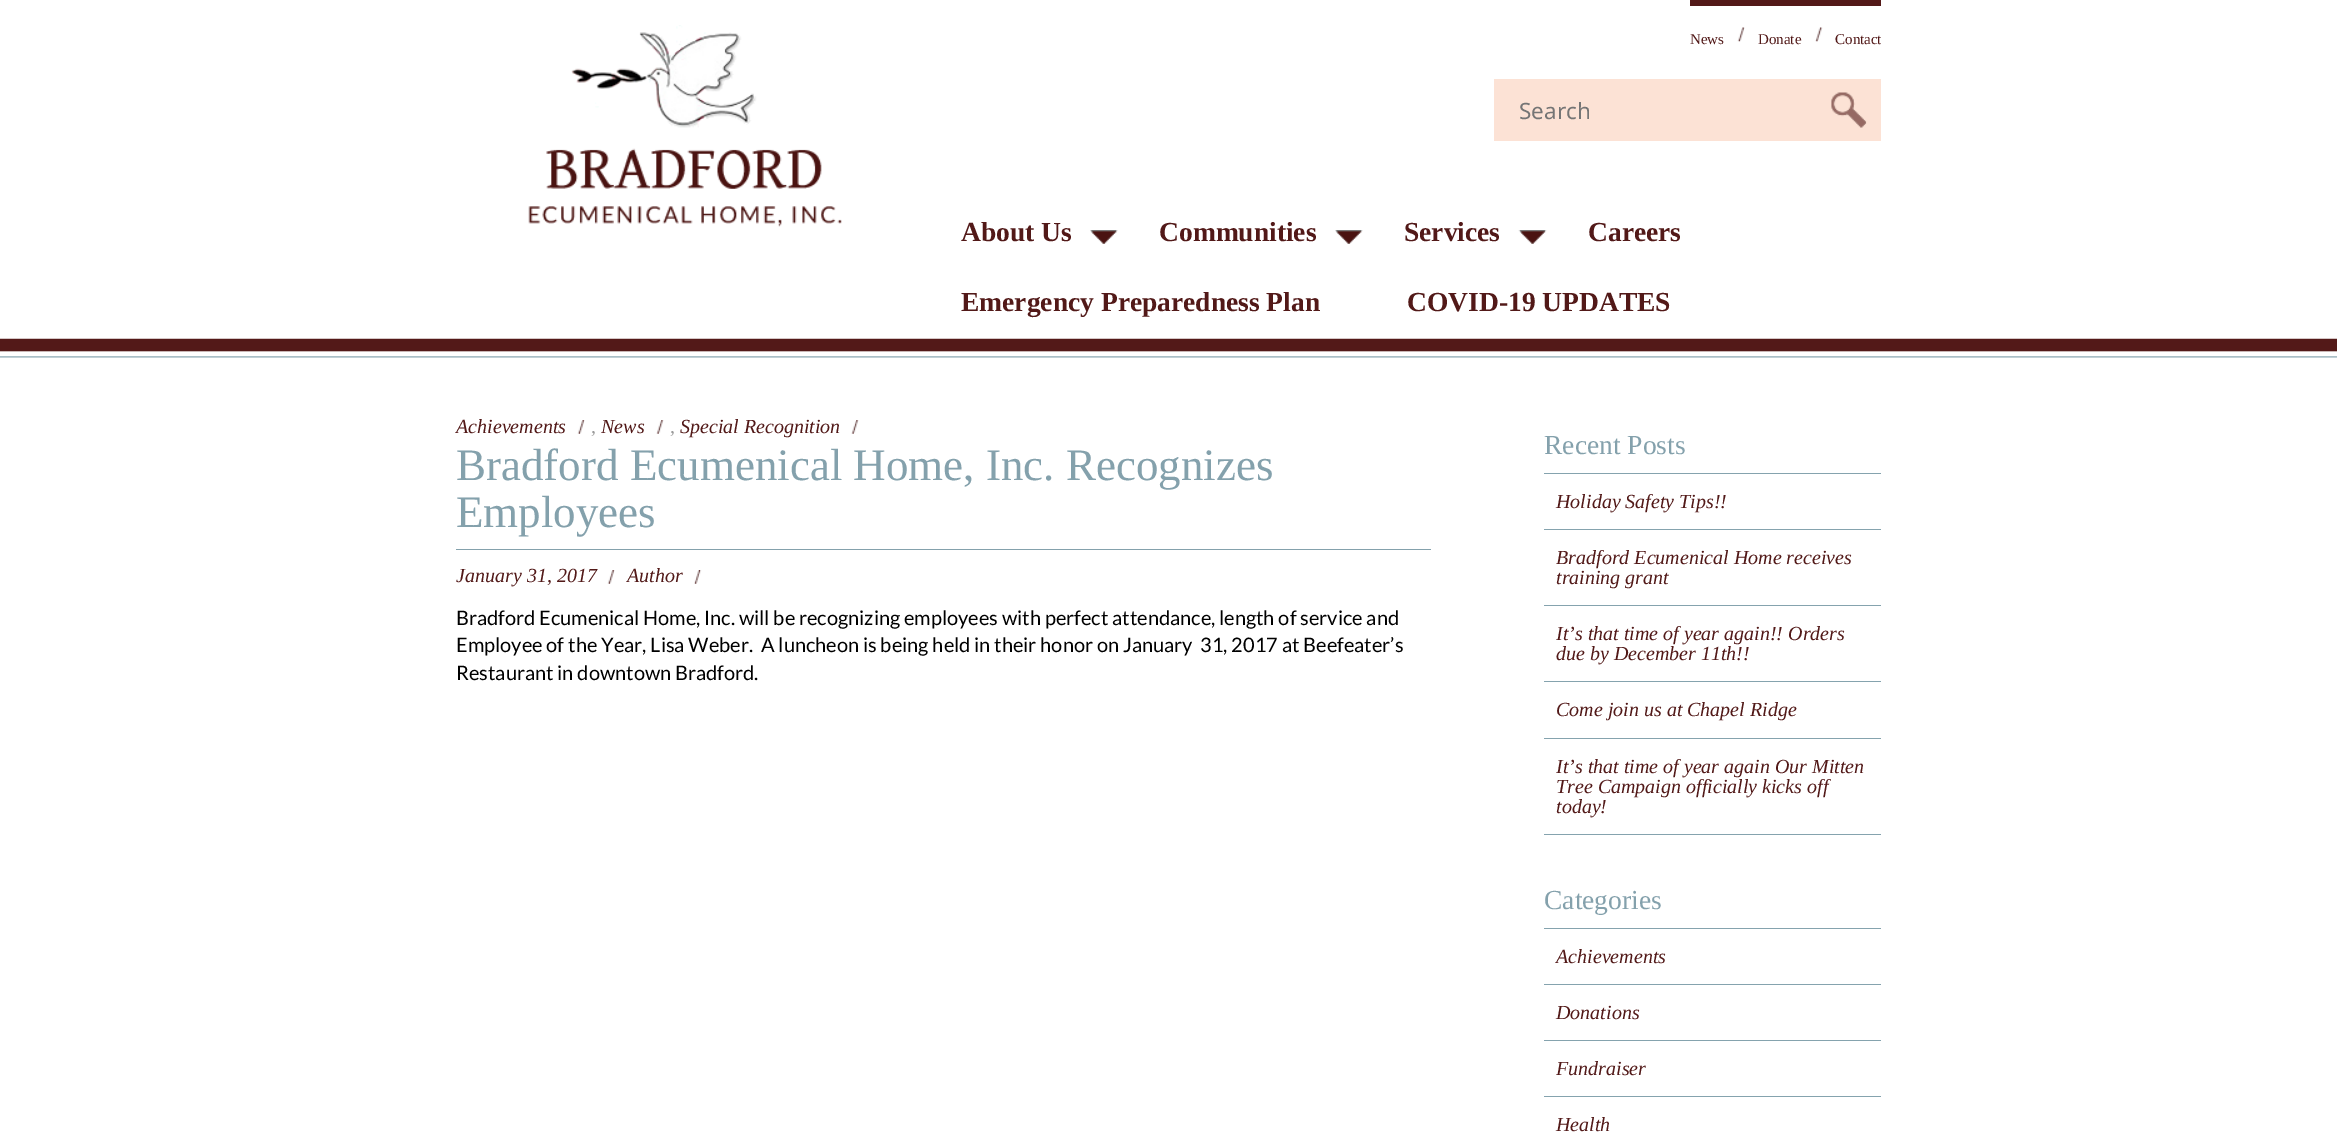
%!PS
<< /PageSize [2337 1147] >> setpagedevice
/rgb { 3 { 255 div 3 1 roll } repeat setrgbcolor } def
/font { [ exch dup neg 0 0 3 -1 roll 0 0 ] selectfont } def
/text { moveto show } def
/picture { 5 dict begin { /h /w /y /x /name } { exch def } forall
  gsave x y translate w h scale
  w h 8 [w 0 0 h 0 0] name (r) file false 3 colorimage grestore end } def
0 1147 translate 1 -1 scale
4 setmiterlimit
255 255 255 rgb
0 0 2337 1147 rectfill
(img_01.rgb) 0 338 2337 20 picture
(img_02.rgb) 528 25 314 202 picture
83 25 24 rgb
1690 0 191 6 rectfill
(img_03.rgb) 1737 27 8 15 picture
(img_04.rgb) 1815 27 8 15 picture
252 226 213 rgb
1494 79 387 62 rectfill
(img_05.rgb) 1831 92 36 36 picture
(img_06.rgb) 1090 230 28 14 picture
(img_06.rgb) 1335 230 28 14 picture
(img_07.rgb) 1518 230 29 14 picture
(img_08.rgb) 577 420 8 14 picture
(img_09.rgb) 656 420 8 14 picture
(img_09.rgb) 851 420 8 14 picture
132 161 172 rgb
456 549 975 1 rectfill
(img_10.rgb) 607 570 8 14 picture
(img_11.rgb) 694 570 8 14 picture
133 163 174 rgb
1544 473 337 1 rectfill
1544 529 337 1 rectfill
1544 605 337 1 rectfill
1544 681 337 1 rectfill
1544 738 337 1 rectfill
1544 834 337 1 rectfill
1544 928 337 1 rectfill
1544 984 337 1 rectfill
1544 1040 337 1 rectfill
1544 1096 337 1 rectfill
/LiberationSerif-Regular 15 font
82 25 24 rgb
(News) 1690 44 text
(Donate) 1758 44 text
(Contact) 1835 44 text
/NotoSans-Regular 22.5 font
117 117 117 rgb
(Search) 1519 119 text
/LiberationSerif-Bold 27.5 font
82 25 24 rgb
(About Us) 961 241 text
(Communities) 1159 241 text
(Services) 1404 241 text
(Careers) 1588 241 text
(Emergency Preparedness Plan) 961 311 text
(COVID-19 UPDATES) 1407 311 text
/LiberationSerif-Italic 20 font
(Achievements) 456 433 text
/LiberationSerif-Regular 20 font
154 154 154 rgb
(,) 591 433 text
/LiberationSerif-Italic 20 font
82 25 24 rgb
(News) 601 433 text
/LiberationSerif-Regular 20 font
154 154 154 rgb
(,) 670 433 text
/LiberationSerif-Italic 20 font
82 25 24 rgb
(Special Recognition) 680 433 text
/LiberationSerif-Regular 45 font
132 161 172 rgb
(Bradford Ecumenical Home, Inc. Recognizes) 456 480 text
(Employees) 456 527 text
/LiberationSerif-Italic 20 font
82 25 24 rgb
(January 31, 2017) 456 582 text
(Author) 627 582 text
/Lato-Regular 20 font
0 0 0 rgb
(Bradford Ecumenical Home, Inc. will be recognizing employees with perfect attendance, length of service and) 456 625 text
(Employee of the Year, Lisa Weber.  A luncheon is being held in their honor on January  31, 2017 at Beefeater’s) 456 652 text
(Restaurant in downtown Bradford.) 456 680 text
/LiberationSerif-Regular 27.5 font
132 161 172 rgb
(Recent Posts) 1544 454 text
/LiberationSerif-Italic 20 font
82 25 24 rgb
(Holiday Safety Tips!!) 1556 508 text
(Bradford Ecumenical Home receives) 1556 564 text
(training grant) 1556 584 text
(It’s that time of year again!! Orders) 1556 640 text
(due by December 11th!!) 1556 660 text
(Come join us at Chapel Ridge) 1556 716 text
(It’s that time of year again Our Mitten) 1556 773 text
(Tree Campaign officially kicks off) 1556 793 text
(today!) 1556 813 text
/LiberationSerif-Regular 27.5 font
132 161 172 rgb
(Categories) 1544 909 text
/LiberationSerif-Italic 20 font
82 25 24 rgb
(Achievements) 1556 963 text
(Donations) 1556 1019 text
(Fundraiser) 1556 1075 text
(Health) 1556 1131 text
showpage
